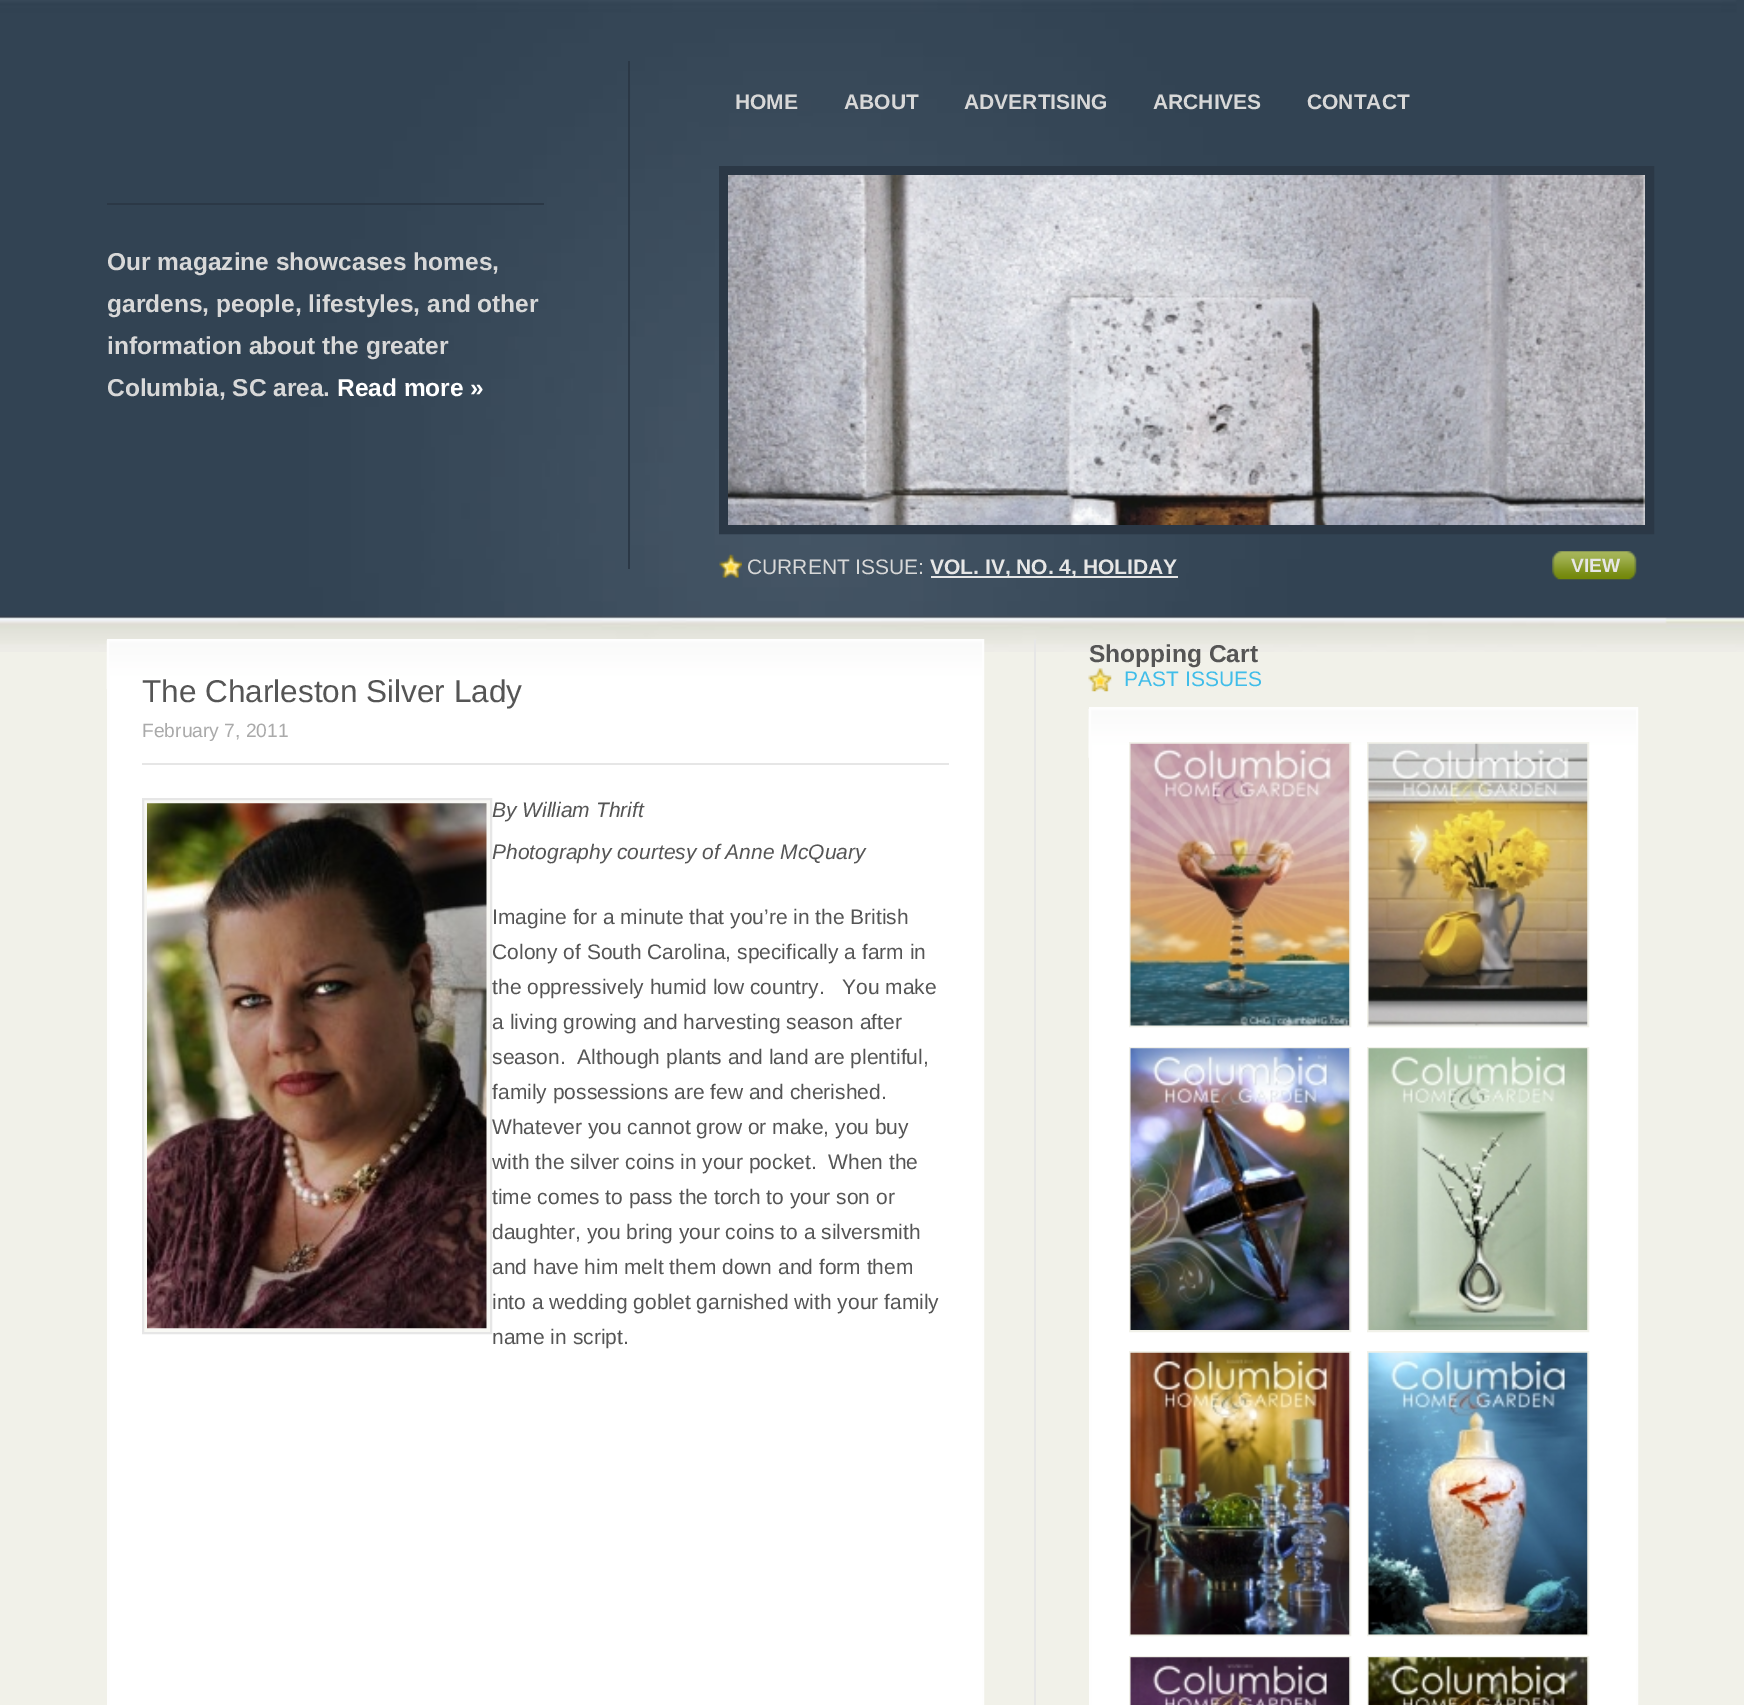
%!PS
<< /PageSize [1744 1705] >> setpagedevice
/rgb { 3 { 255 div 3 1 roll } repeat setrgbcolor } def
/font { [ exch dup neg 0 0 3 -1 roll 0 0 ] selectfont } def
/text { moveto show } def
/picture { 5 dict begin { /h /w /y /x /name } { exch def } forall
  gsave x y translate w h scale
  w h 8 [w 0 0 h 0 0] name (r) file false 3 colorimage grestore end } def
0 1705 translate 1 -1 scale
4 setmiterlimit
241 241 233 rgb
0 0 1744 1705 rectfill
(img_01.rgb) 0 0 1744 652 picture
43 56 70 rgb
628 61 2 508 rectfill
107 203 437 2 rectfill
9 setlinewidth
723.5 170.5 926 359 rectstroke
(img_02.rgb) 728 175 917 350 picture
(img_03.rgb) 719 554 23 24 picture
230 230 230 rgb
931 576 247 2 rectfill
(img_04.rgb) 1552 551 85 29 picture
1034 639 2 1066 rectfill
(img_05.rgb) 1088 668 24 24 picture
255 255 255 rgb
1091 757 545 948 rectfill
(img_06.rgb) 1088 709 548 49 picture
254 254 254 rgb
2 setlinewidth
1090 708 547 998 rectstroke
241 241 233 rgb
1130 743 220 283 rectstroke
1368 743 220 283 rectstroke
(img_07.rgb) 1130 743 220 283 picture
(img_08.rgb) 1368 743 220 283 picture
1130 1048 220 283 rectstroke
1368 1048 220 283 rectstroke
(img_09.rgb) 1130 1048 220 282 picture
(img_10.rgb) 1368 1048 220 282 picture
1130 1352 220 283 rectstroke
1368 1352 220 283 rectstroke
(img_11.rgb) 1130 1352 220 283 picture
(img_12.rgb) 1368 1352 220 283 picture
1130 1657 220 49 rectstroke
1368 1657 220 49 rectstroke
(img_13.rgb) 1130 1657 220 48 picture
(img_14.rgb) 1368 1657 220 48 picture
255 255 255 rgb
109 689 873 1016 rectfill
(img_15.rgb) 106 640 876 49 picture
254 254 254 rgb
108 640 875 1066 rectstroke
230 230 230 rgb
142 763 807 2 rectfill
248 248 244 rgb
143 799 moveto 348 0 rlineto 0 534 rlineto -348 0 rlineto closepath gsave fill grestore
230 230 230 rgb
stroke
(img_16.rgb) 147 803 340 526 picture
/LiberationSans-Bold 21 font
216 216 216 rgb
(HOME) 735 109 text
(ABOUT) 844 109 text
(ADVERTISING) 964 109 text
(ARCHIVES) 1153 109 text
(CONTACT) 1307 109 text
/LiberationSans-Bold 24.5 font
(Our magazine showcases homes,) 107 270 text
(gardens, people, lifestyles, and other) 107 312 text
(information about the greater) 107 354 text
(Columbia, SC area.) 107 396 text
255 255 255 rgb
(Read more ») 337 396 text
/LiberationSans-Regular 21 font
216 216 216 rgb
(CURRENT ISSUE:) 747 574 text
/LiberationSans-Bold 21 font
230 230 230 rgb
(VOL. IV, NO. 4, HOLIDAY) 930 574 text
/LiberationSans-Bold 19.25 font
(VIEW) 1571 572 text
/LiberationSans-Bold 24.5 font
85 85 85 rgb
(Shopping Cart) 1089 662 text
/LiberationSans-Regular 21 font
64 189 233 rgb
(PAST ISSUES) 1124 686 text
/LiberationSans-Regular 31.5 font
85 85 85 rgb
(The Charleston Silver Lady) 142 702 text
/LiberationSans-Regular 19.25 font
170 170 170 rgb
(February 7, 2011) 142 737 text
/LiberationSans-Italic 21 font
85 85 85 rgb
(By William Thrift) 492 817 text
(Photography courtesy of Anne McQuary) 492 859 text
/LiberationSans-Regular 21 font
(Imagine for a minute that you’re in the British) 492 924 text
(Colony of South Carolina, specifically a farm in) 492 959 text
(the oppressively humid low country.   You make) 492 994 text
(a living growing and harvesting season after) 492 1029 text
(season.  Although plants and land are plentiful,) 492 1064 text
(family possessions are few and cherished.) 492 1099 text
(Whatever you cannot grow or make, you buy) 492 1134 text
(with the silver coins in your pocket.  When the) 492 1169 text
(time comes to pass the torch to your son or) 492 1204 text
(daughter, you bring your coins to a silversmith) 492 1239 text
(and have him melt them down and form them) 492 1274 text
(into a wedding goblet garnished with your family) 492 1309 text
(name in script.) 492 1344 text
showpage
